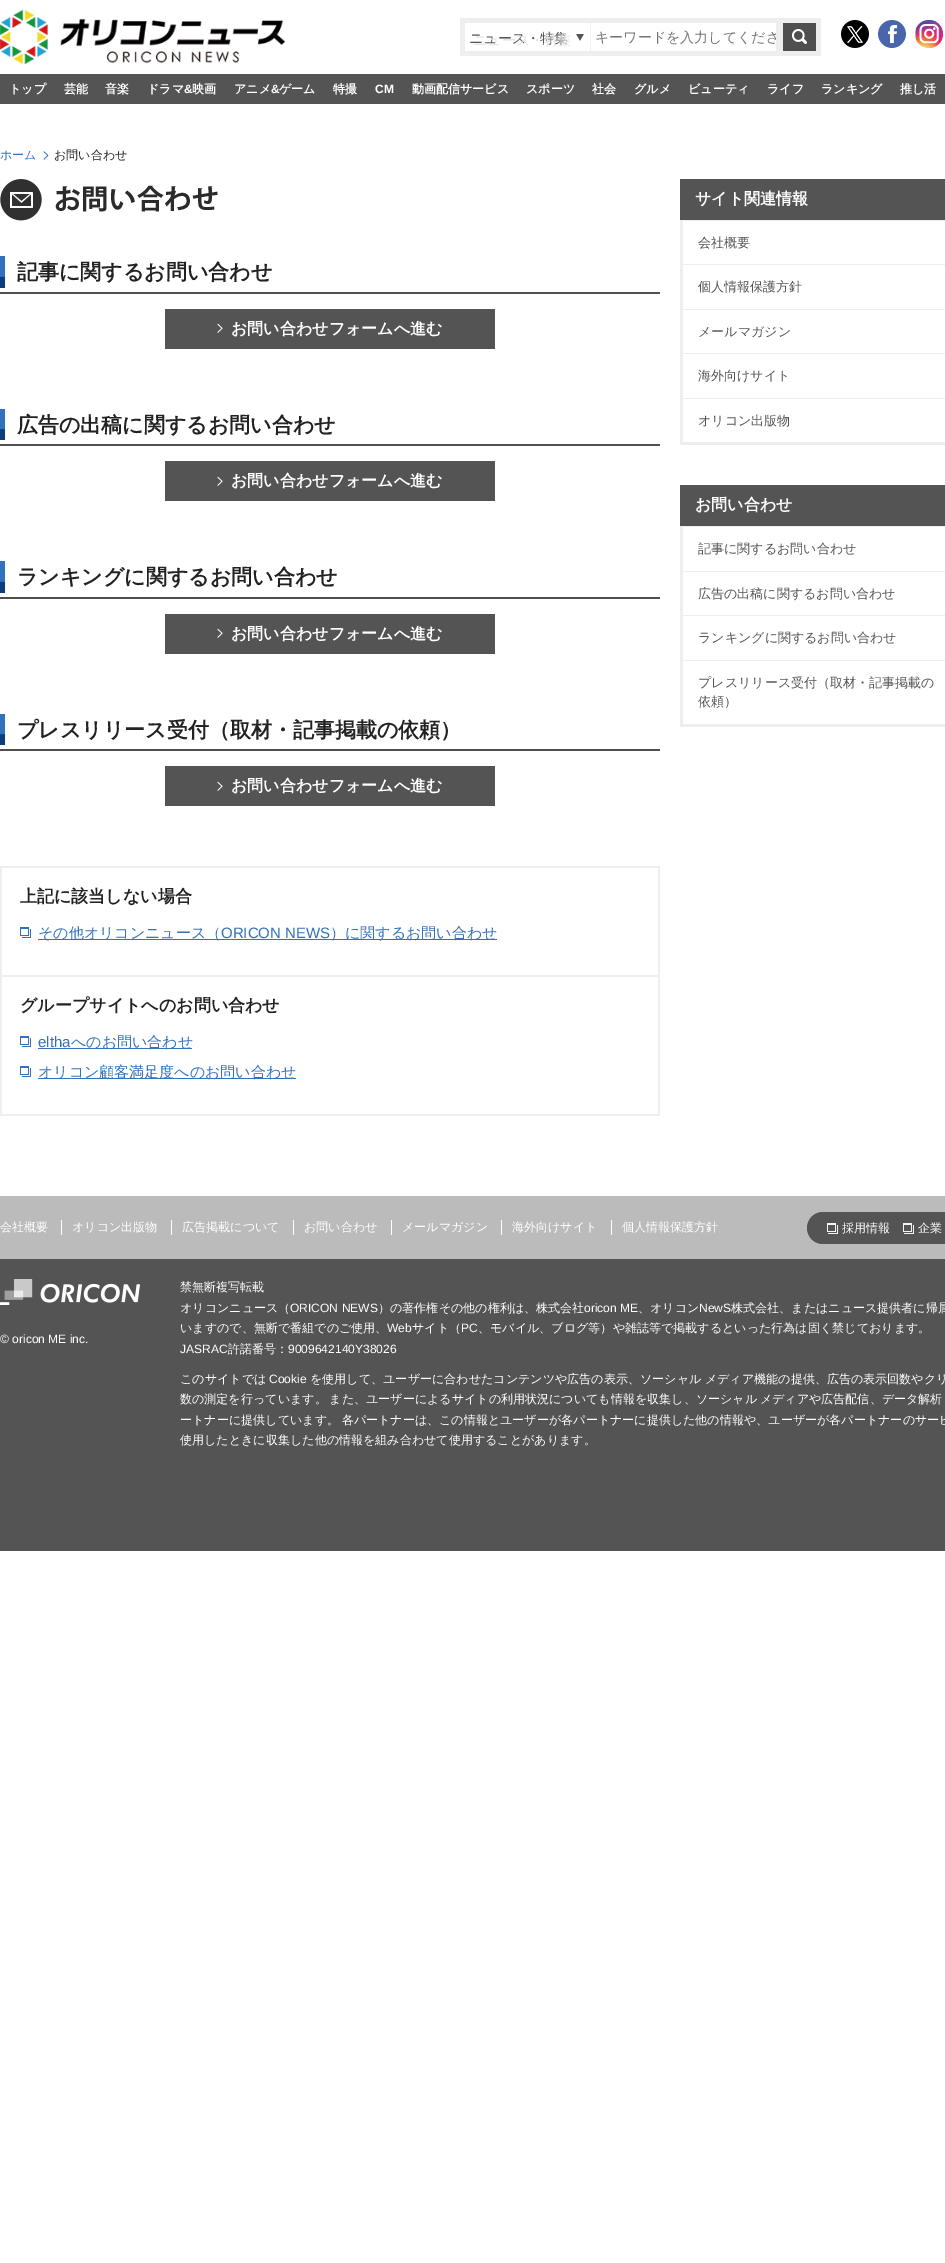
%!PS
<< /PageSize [945 2263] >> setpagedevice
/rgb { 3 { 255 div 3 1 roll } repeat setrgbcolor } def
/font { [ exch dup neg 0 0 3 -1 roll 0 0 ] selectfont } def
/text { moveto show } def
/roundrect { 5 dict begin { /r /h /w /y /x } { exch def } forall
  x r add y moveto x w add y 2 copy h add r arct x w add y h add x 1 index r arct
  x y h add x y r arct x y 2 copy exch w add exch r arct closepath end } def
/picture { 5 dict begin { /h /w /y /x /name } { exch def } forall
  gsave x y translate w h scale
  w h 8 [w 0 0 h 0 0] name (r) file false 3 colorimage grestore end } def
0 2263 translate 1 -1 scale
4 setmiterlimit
255 255 255 rgb
0 0 945 2263 rectfill
(img_01.rgb) 0 10 285 54 picture
238 238 238 rgb
460 18 361 38 rectfill
255 255 255 rgb
465 23 125 28 rectfill
(img_02.rgb) 576 34 8 7 picture
591 23 185 28 rectfill
(img_03.rgb) 783 23 33 28 picture
(img_04.rgb) 841 20 28 28 picture
(img_05.rgb) 878 20 28 28 picture
(img_06.rgb) 915 20 28 28 picture
84 84 84 rgb
0 74 945 30 rectfill
(img_07.rgb) 43 151 6 9 picture
(img_08.rgb) 0 179 218 42 picture
79 79 79 rgb
0 292 660 2 rectfill
(img_09.rgb) 0 256 5 32 picture
84 84 84 rgb
165 309 330 40 rectfill
(img_10.rgb) 217 323 6 10 picture
79 79 79 rgb
0 444 660 2 rectfill
(img_11.rgb) 0 409 5 31 picture
84 84 84 rgb
165 461 330 40 rectfill
(img_10.rgb) 217 476 6 10 picture
79 79 79 rgb
0 597 660 2 rectfill
(img_09.rgb) 0 561 5 32 picture
84 84 84 rgb
165 614 330 40 rectfill
(img_10.rgb) 217 628 6 10 picture
79 79 79 rgb
0 749 660 2 rectfill
(img_11.rgb) 0 714 5 31 picture
84 84 84 rgb
165 766 330 40 rectfill
(img_10.rgb) 217 781 6 10 picture
238 238 238 rgb
0 866 660 2 rectfill
658 866 2 250 rectfill
0 866 2 250 rectfill
2 975 656 2 rectfill
(img_12.rgb) 20 927 11 11 picture
49 113 189 rgb
38 939 459 1 rectfill
238 238 238 rgb
2 1114 656 2 rectfill
(img_12.rgb) 20 1036 11 11 picture
49 113 189 rgb
38 1048 154 1 rectfill
(img_12.rgb) 20 1066 11 11 picture
38 1078 258 1 rectfill
84 84 84 rgb
680 179 265 41 rectfill
238 238 238 rgb
680 442 265 3 rectfill
680 220 3 225 rectfill
683 220 262 1 rectfill
683 264 262 1 rectfill
683 309 262 1 rectfill
683 353 262 1 rectfill
683 398 262 1 rectfill
84 84 84 rgb
680 485 265 41 rectfill
238 238 238 rgb
680 724 265 3 rectfill
680 526 3 201 rectfill
683 526 262 1 rectfill
683 571 262 1 rectfill
683 615 262 1 rectfill
683 660 262 1 rectfill
187 187 187 rgb
0 1196 945 63 rectfill
255 255 255 rgb
61 1220 1 15 rectfill
171 1220 1 15 rectfill
293 1220 1 15 rectfill
391 1220 1 15 rectfill
501 1220 1 15 rectfill
611 1220 1 15 rectfill
84 84 84 rgb
807 1212 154 32 16 roundrect fill
(img_13.rgb) 827 1223 11 11 picture
(img_13.rgb) 903 1223 11 11 picture
0 1259 945 292 rectfill
(img_14.rgb) 0 1279 140 26 picture
/WenQuanYiZenHei-Medium 14 font
(ニュース・特集) 469 43 text
gsave
473 31 97 18 rectclip
227 227 227 rgb
(ニュース・特集) 473 45 text
grestore
gsave
595 29 181 18 rectclip
117 117 117 rgb
(キーワードを入力してくださ) 595 42 text
grestore
/WenQuanYiZenHei-Bold 12 font
255 255 255 rgb
(トップ) 9 93 text
(芸能) 64 93 text
(音楽) 105 93 text
(ドラマ) 147 93 text
/LiberationSans-Bold 12 font
(&) 184 93 text
/WenQuanYiZenHei-Bold 12 font
(映画) 192 93 text
(アニメ) 234 93 text
/LiberationSans-Bold 12 font
(&) 271 93 text
/WenQuanYiZenHei-Bold 12 font
(ゲーム) 279 93 text
(特撮) 333 93 text
/LiberationSans-Bold 12 font
(CM) 375 93 text
/WenQuanYiZenHei-Bold 12 font
(動画配信サービス) 412 93 text
(スポーツ) 526 93 text
(社会) 592 93 text
(グルメ) 634 93 text
(ビューティ) 688 93 text
(ライフ) 767 93 text
(ランキング) 821 93 text
(推し活) 900 93 text
/WenQuanYiZenHei-Medium 12.05 font
49 113 189 rgb
(ホーム) 0 159 text
34 34 34 rgb
(お問い合わせ) 54 159 text
/WenQuanYiZenHei-Bold 21 font
(記事に関するお問い合わせ) 17 279 text
/WenQuanYiZenHei-Bold 16 font
255 255 255 rgb
(お問い合わせフォームへ進む) 231 334 text
/WenQuanYiZenHei-Bold 21 font
34 34 34 rgb
(広告の出稿に関するお問い合わせ) 17 432 text
/WenQuanYiZenHei-Bold 16 font
255 255 255 rgb
(お問い合わせフォームへ進む) 231 486 text
/WenQuanYiZenHei-Bold 21 font
34 34 34 rgb
(ランキングに関するお問い合わせ) 17 584 text
/WenQuanYiZenHei-Bold 16 font
255 255 255 rgb
(お問い合わせフォームへ進む) 231 639 text
/WenQuanYiZenHei-Bold 21 font
34 34 34 rgb
(プレスリリース受付（取材・記事掲載の依頼）) 17 737 text
/WenQuanYiZenHei-Bold 16 font
255 255 255 rgb
(お問い合わせフォームへ進む) 231 791 text
/WenQuanYiZenHei-Bold 17 font
34 34 34 rgb
(上記に該当しない場合) 20 902 text
/WenQuanYiZenHei-Medium 15 font
49 113 189 rgb
(その他オリコンニュース（) 38 938 text
/LiberationSans-Regular 15 font
(ORICON NEWS) 221 938 text
/WenQuanYiZenHei-Medium 15 font
(）に関するお問い合わせ) 330 938 text
/WenQuanYiZenHei-Bold 17 font
34 34 34 rgb
(グループサイトへのお問い合わせ) 20 1011 text
/LiberationSans-Regular 15 font
49 113 189 rgb
(eltha) 38 1047 text
/WenQuanYiZenHei-Medium 15 font
(へのお問い合わせ) 71 1047 text
(オリコン顧客満足度へのお問い合わせ) 38 1077 text
/WenQuanYiZenHei-Bold 16 font
255 255 255 rgb
(サイト関連情報) 695 204 text
/WenQuanYiZenHei-Medium 13 font
84 84 84 rgb
(会社概要) 698 247 text
(個人情報保護方針) 698 291 text
(メールマガジン) 698 336 text
(海外向けサイト) 698 380 text
(オリコン出版物) 698 425 text
/WenQuanYiZenHei-Bold 16 font
255 255 255 rgb
(お問い合わせ) 695 510 text
/WenQuanYiZenHei-Medium 13 font
84 84 84 rgb
(記事に関するお問い合わせ) 698 553 text
(広告の出稿に関するお問い合わせ) 698 598 text
(ランキングに関するお問い合わせ) 698 642 text
(プレスリリース受付（取材・記事掲載の) 698 687 text
(依頼）) 698 706 text
/WenQuanYiZenHei-Medium 12.05 font
255 255 255 rgb
(会社概要) 0 1231 text
(オリコン出版物) 72 1231 text
(広告掲載について) 182 1231 text
(お問い合わせ) 304 1231 text
(メールマガジン) 402 1231 text
(海外向けサイト) 512 1231 text
(個人情報保護方針) 622 1231 text
(採用情報) 842 1232 text
(企業) 918 1232 text
/LiberationSans-Regular 12.05 font
(© oricon ME inc.) 0 1343 text
/WenQuanYiZenHei-Medium 12.05 font
(禁無断複写転載) 180 1291 text
(オリコンニュース（) 180 1312 text
/LiberationSans-Regular 12.05 font
(ORICON NEWS) 290 1312 text
/WenQuanYiZenHei-Medium 12.05 font
(）の著作権その他の権利は、株式会社) 378 1312 text
/LiberationSans-Regular 12.05 font
(oricon ME) 584 1312 text
/WenQuanYiZenHei-Medium 12.05 font
(、オリコン) 638 1312 text
/LiberationSans-Regular 12.05 font
(NewS) 699 1312 text
/WenQuanYiZenHei-Medium 12.05 font
(株式会社、またはニュース提供者に帰属) 731 1312 text
(いますので、無断で番組でのご使用、) 180 1332 text
/LiberationSans-Regular 12.05 font
(Web) 387 1332 text
/WenQuanYiZenHei-Medium 12.05 font
(サイト（) 412 1332 text
/LiberationSans-Regular 12.05 font
(PC) 461 1332 text
/WenQuanYiZenHei-Medium 12.05 font
(、モバイル、ブログ等）や雑誌等で掲載するといった行為は固く禁じております。) 478 1332 text
/LiberationSans-Regular 12.05 font
(JASRAC) 180 1353 text
/WenQuanYiZenHei-Medium 12.05 font
(許諾番号：) 228 1353 text
/LiberationSans-Regular 12.05 font
(9009642140Y38026) 288 1353 text
/WenQuanYiZenHei-Medium 12.05 font
(このサイトでは) 180 1383 text
/LiberationSans-Regular 12.05 font
(Cookie) 269 1383 text
/WenQuanYiZenHei-Medium 12.05 font
(を使用して、ユーザーに合わせたコンテンツや広告の表示、ソーシャル メディア機能の提供、広告の表示回数やクリ) 310 1383 text
180 1403 moveto -1 0 32 (数の測定を行っています。 また、ユーザーによるサイトの利用状況についても情報を収集し、ソーシャル メディアや広告配信、データ解析) widthshow
180 1424 moveto -1 0 32 (ートナーに提供しています。 各パートナーは、この情報とユーザーが各パートナーに提供した他の情報や、ユーザーが各パートナーのサービ) widthshow
(使用したときに収集した他の情報を組み合わせて使用することがあります。) 180 1444 text
showpage
